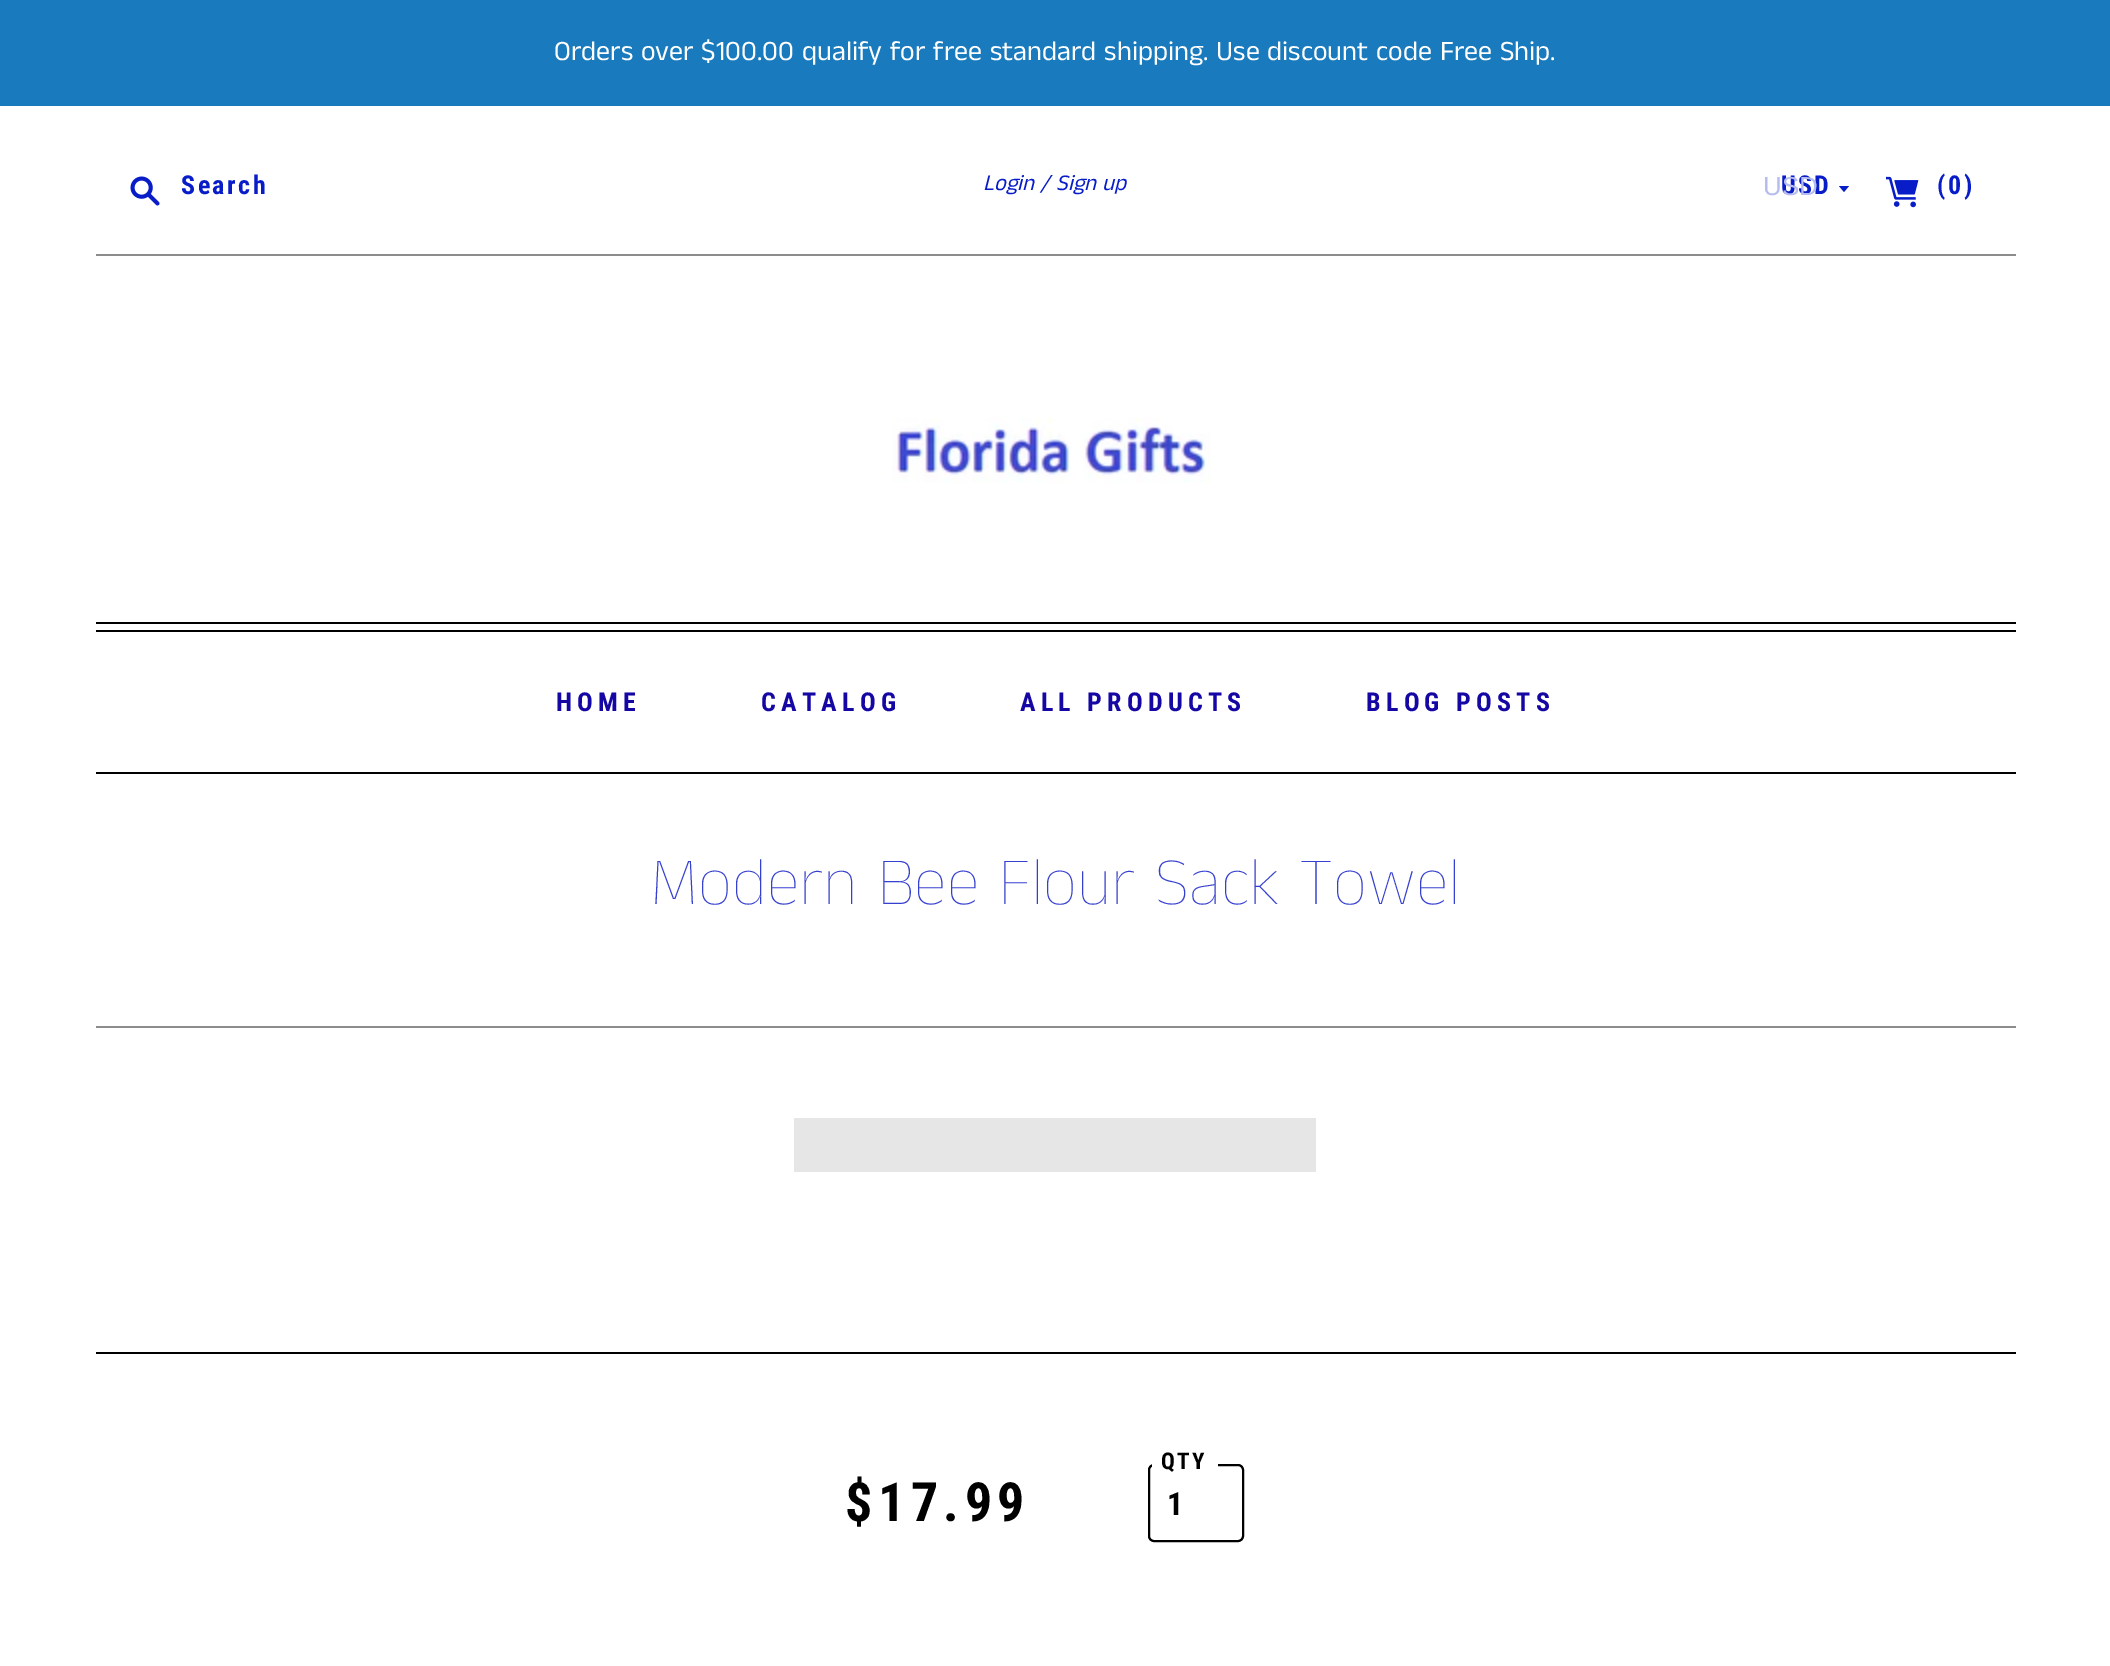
%!PS
<< /PageSize [2110 1666] >> setpagedevice
/rgb { 3 { 255 div 3 1 roll } repeat setrgbcolor } def
/font { [ exch dup neg 0 0 3 -1 roll 0 0 ] selectfont } def
/text { moveto show } def
/roundrect { 5 dict begin { /r /h /w /y /x } { exch def } forall
  x r add y moveto x w add y 2 copy h add r arct x w add y h add x 1 index r arct
  x y h add x y r arct x y 2 copy exch w add exch r arct closepath end } def
/picture { 5 dict begin { /h /w /y /x /name } { exch def } forall
  gsave x y translate w h scale
  w h 8 [w 0 0 h 0 0] name (r) file false 3 colorimage grestore end } def
0 1666 translate 1 -1 scale
4 setmiterlimit
255 255 255 rgb
0 0 2110 1666 rectfill
25 123 189 rgb
0 0 2110 106 rectfill
140 140 140 rgb
96 254 1920 2 rectfill
(img_01.rgb) 130 176 30 30 picture
8 29 200 rgb
1839 186 moveto 10 0 rlineto -5 6 rlineto eofill
(img_02.rgb) 1886 176 33 32 picture
(img_03.rgb) 892 417 319 66 picture
0 0 0 rgb
96 630 1920 2 rectfill
96 622 1920 2 rectfill
96 772 1920 2 rectfill
140 140 140 rgb
96 1026 1920 2 rectfill
230 230 230 rgb
794 1118 522 54 rectfill
0 0 0 rgb
96 1352 1920 2 rectfill
2 setlinewidth
1149 1465 94 76 5 roundrect stroke
255 255 255 rgb
1152 1464 66 3 rectfill
/AnekTamil-Regular 28 font
(Orders over $100.00 qualify for free standard shipping. Use discount code Free Ship.) 554 60 text
/RobotoCondensed-Bold 26 font
8 29 200 rgb
181 194 moveto 2.5 0 (Search) ashow
/AnekTamil-Italic 22.5 font
(Login / Sign up) 983 190 text
/RobotoCondensed-Bold 26 font
1781 194 moveto 2 0 (USD) ashow
/LiberationSans-Regular 26 font
182 188 239 rgb
(USD) 1763 195 text
/RobotoCondensed-Bold 26 font
8 29 200 rgb
1937 194 moveto 2.5 0 (\(0\)) ashow
21 7 164 rgb
556 711 moveto 5.25 0 (HOME) ashow
761 711 moveto 5.25 0 (CATALOG) ashow
1020 711 moveto 5.25 0 (ALL PRODUCTS) ashow
1366 711 moveto 5.25 0 (BLOG POSTS) ashow
/AnekTamil-Thin 67.5 font
54 64 207 rgb
(Modern Bee Flour Sack Towel) 650 904 text
/RobotoCondensed-Bold 54 font
0 0 0 rgb
845 1521 moveto 5.5 0 ($17.99) ashow
/RobotoCondensed-Bold 23 font
1161 1469 moveto 2.5 0 (QTY) ashow
/RobotoCondensed-Bold 32 font
(1) 1167 1515 text
showpage
